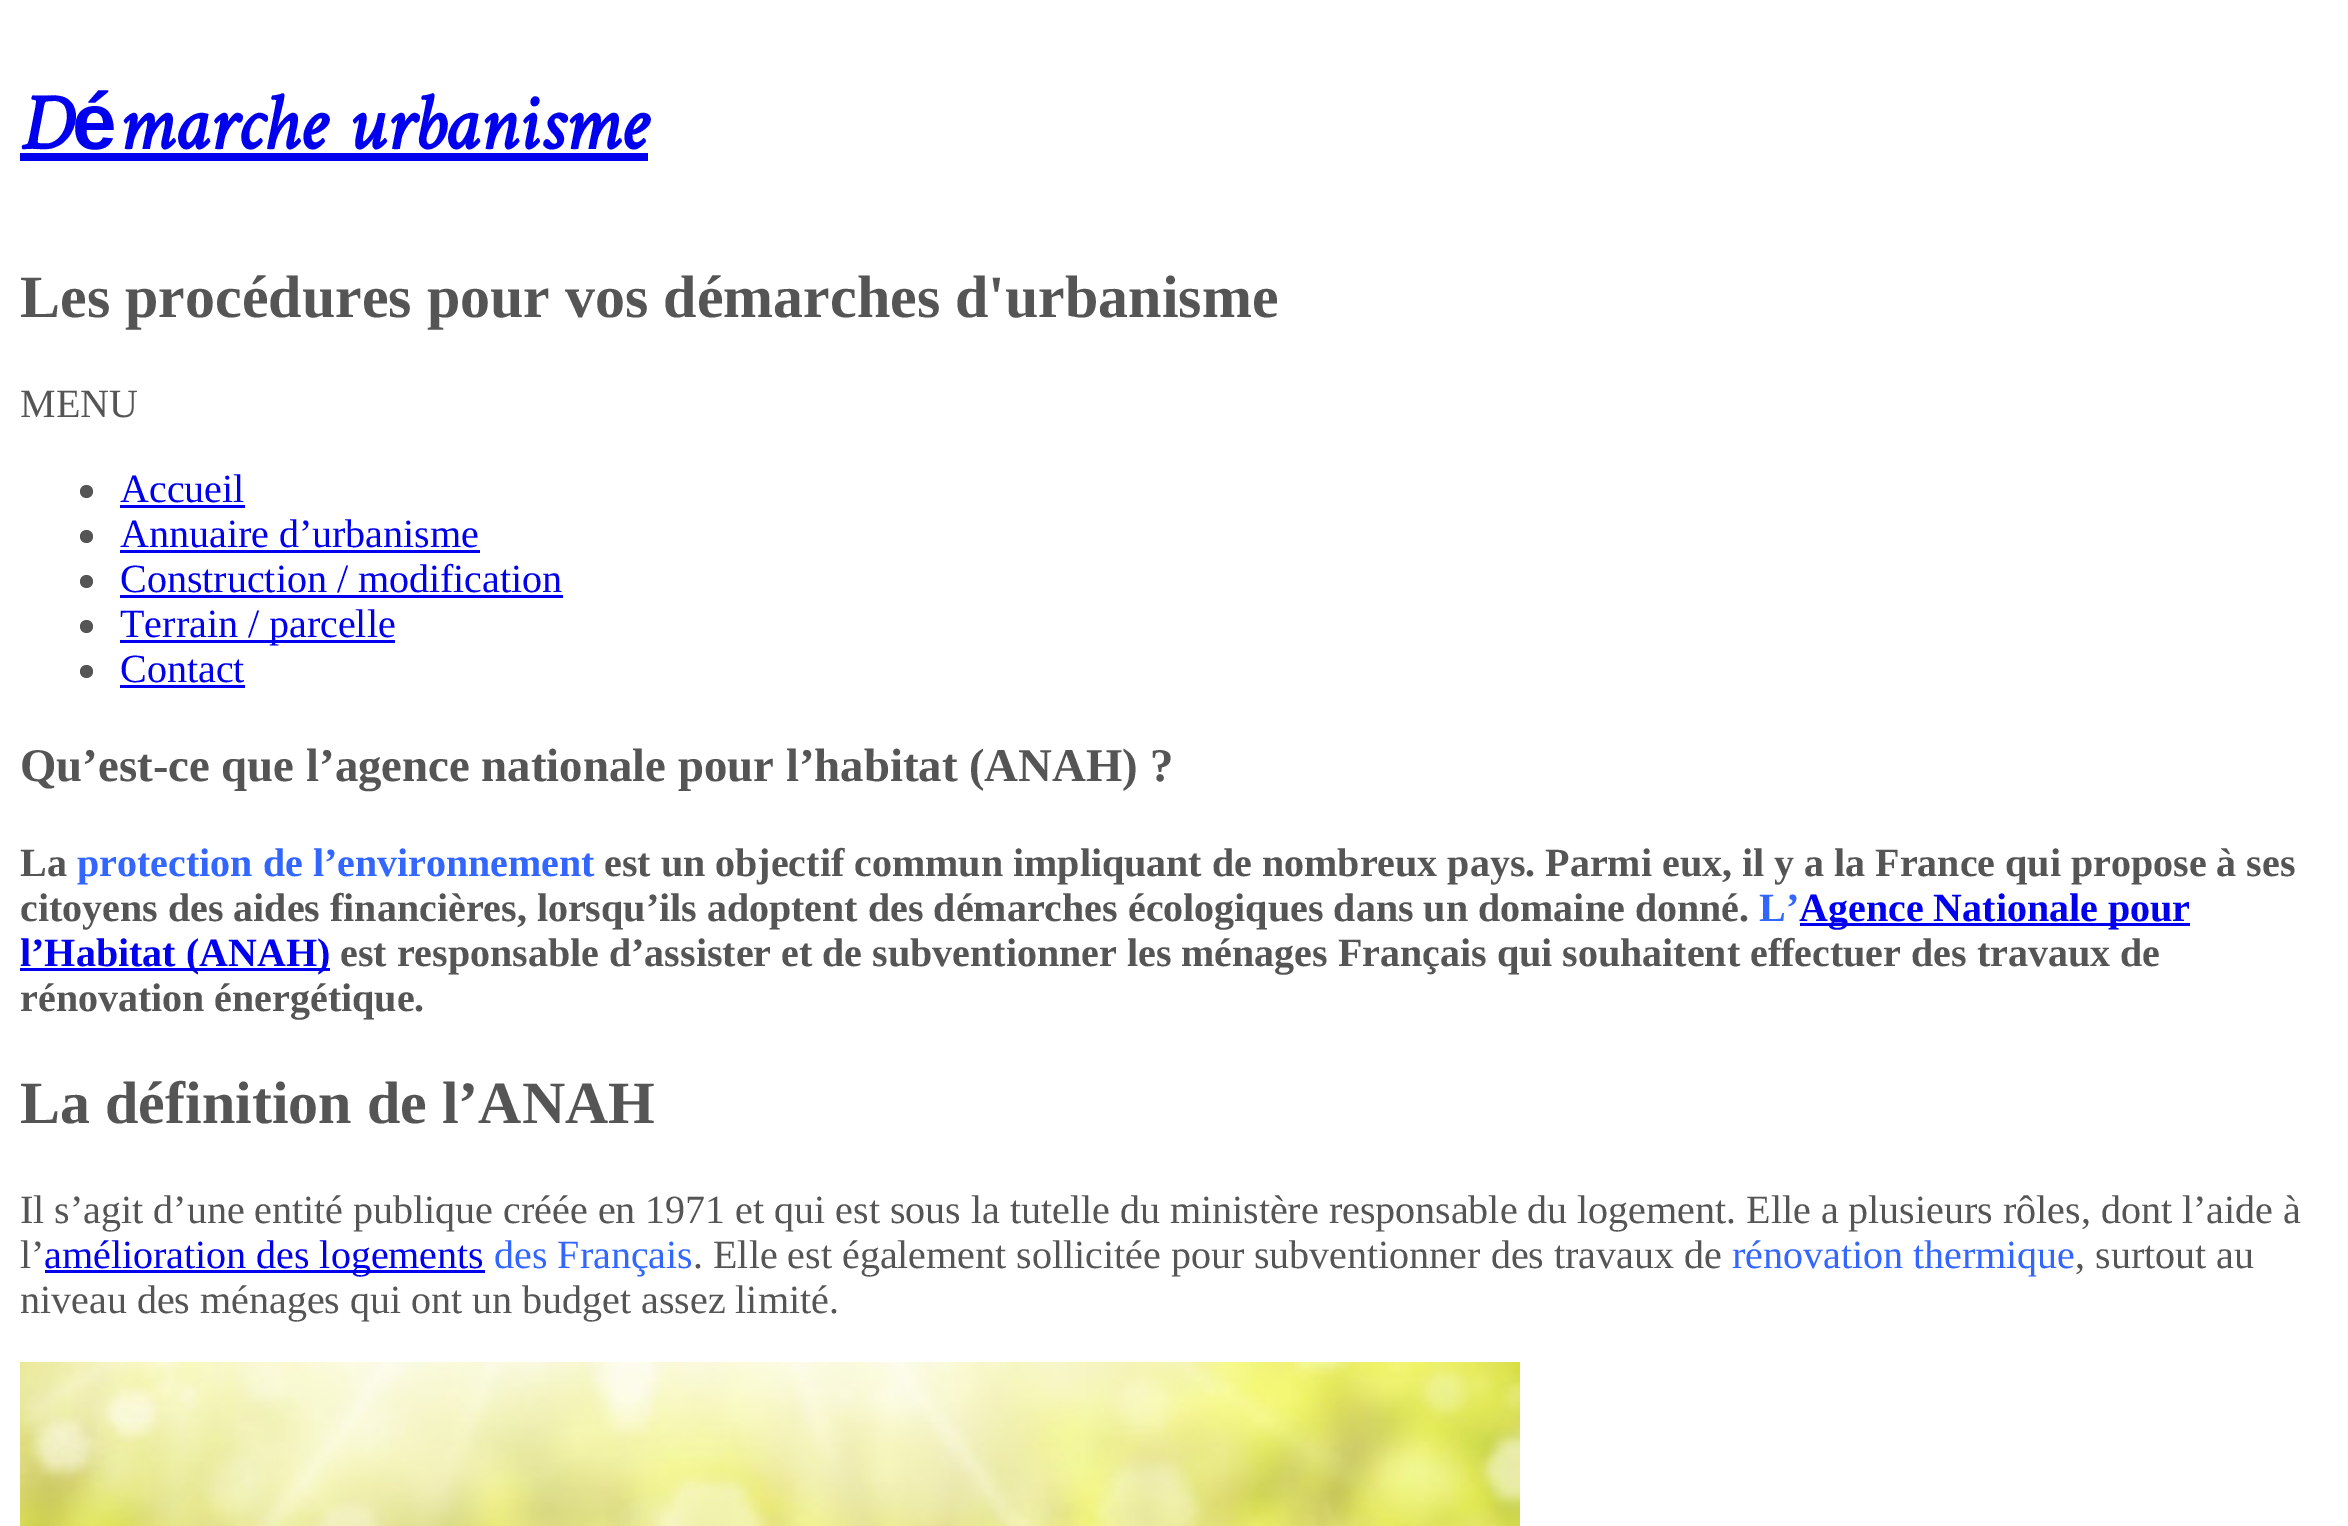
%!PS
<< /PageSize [2348 1526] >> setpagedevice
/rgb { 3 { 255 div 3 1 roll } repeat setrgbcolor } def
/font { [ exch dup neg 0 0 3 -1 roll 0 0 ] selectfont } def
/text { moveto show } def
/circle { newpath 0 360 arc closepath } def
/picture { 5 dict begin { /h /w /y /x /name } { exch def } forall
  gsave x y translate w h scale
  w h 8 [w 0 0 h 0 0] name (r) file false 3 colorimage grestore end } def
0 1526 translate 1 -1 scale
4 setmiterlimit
255 255 255 rgb
0 0 2348 1526 rectfill
0 0 238 rgb
20 153 628 8 rectfill
85 85 85 rgb
86.5 491.5 6.5 circle fill
0 0 238 rgb
120 505 125 3 rectfill
85 85 85 rgb
86.5 536.5 6.5 circle fill
0 0 238 rgb
120 550 360 3 rectfill
85 85 85 rgb
86.5 581.5 6.5 circle fill
0 0 238 rgb
120 595 443 3 rectfill
85 85 85 rgb
86.5 626.5 6.5 circle fill
0 0 238 rgb
120 640 275 3 rectfill
85 85 85 rgb
86.5 671.5 6.5 circle fill
0 0 238 rgb
120 685 125 3 rectfill
1800 923 390 3 rectfill
20 968 310 3 rectfill
45 1270 440 3 rectfill
(img_01.rgb) 20 1362 1500 164 picture
/Metal-Bold 80 font
(D) 20 149 text
/LiberationSans-Bold 80 font
(é) 72 149 text
/Metal-Bold 80 font
(marche urbanisme) 117 149 text
/LiberationSerif-Bold 60 font
85 85 85 rgb
(Les procédures pour vos démarches d'urbanisme) 20 317 text
/LiberationSerif-Regular 40 font
(MENU) 20 417 text
0 0 238 rgb
(Accueil) 120 502 text
(Annuaire d’urbanisme) 120 547 text
(Construction / modification) 120 592 text
(Terrain / parcelle) 120 637 text
(Contact) 120 682 text
/LiberationSerif-Bold 46.8 font
85 85 85 rgb
(Qu’est-ce que l’agence nationale pour l’habitat \(ANAH\) ?) 20 781 text
/LiberationSerif-Bold 40 font
(La) 20 876 text
51 102 255 rgb
(protection de l’environnement) 77 876 text
85 85 85 rgb
(est un objectif commun impliquant de nombreux pays. Parmi eux, il y a la France qui propose à ses) 604 876 text
(citoyens des aides financières, lorsqu’ils adoptent des démarches écologiques dans un domaine donné.) 20 921 text
51 102 255 rgb
(L’) 1759 921 text
0 0 238 rgb
(Agence Nationale pour) 1799 921 text
(l’Habitat \(ANAH\)) 20 966 text
85 85 85 rgb
(est responsable d’assister et de subventionner les ménages Français qui souhaitent effectuer des travaux de) 340 966 text
(rénovation énergétique.) 20 1011 text
/LiberationSerif-Bold 60 font
(La définition de l’ANAH) 20 1123 text
/LiberationSerif-Regular 40 font
(Il s’agit d’une entité publique créée en 1971 et qui est sous la tutelle du ministère responsable du logement. Elle a plusieurs rôles, dont l’aide à) 20 1223 text
(l’) 20 1268 text
0 0 238 rgb
(amélioration des logements) 44 1268 text
51 102 255 rgb
(des Français) 494 1268 text
85 85 85 rgb
(. Elle est également sollicitée pour subventionner des travaux de) 693 1268 text
51 102 255 rgb
(rénovation thermique) 1732 1268 text
85 85 85 rgb
(, surtout au) 2075 1268 text
(niveau des ménages qui ont un budget assez limité.) 20 1313 text
showpage
